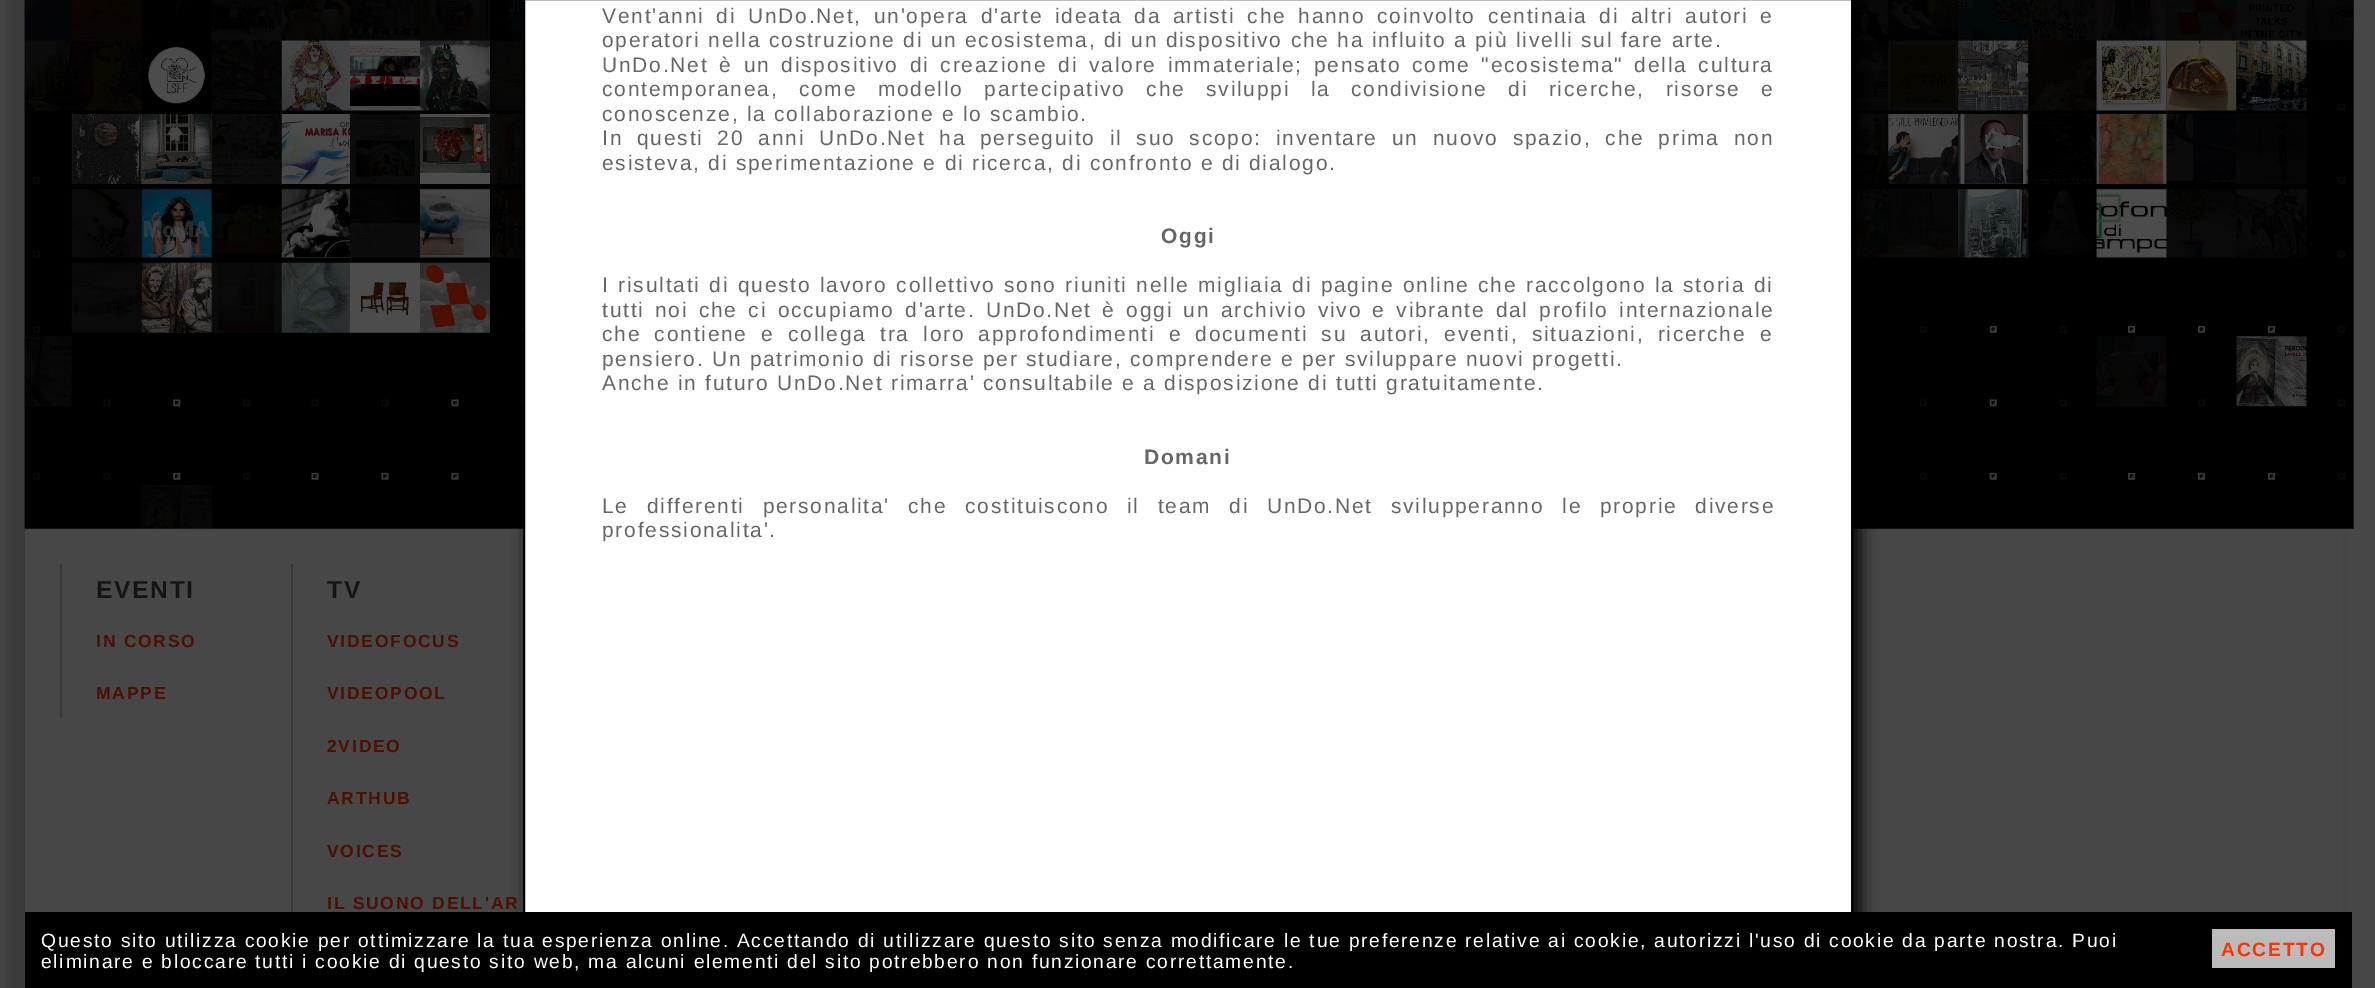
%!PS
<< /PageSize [2375 988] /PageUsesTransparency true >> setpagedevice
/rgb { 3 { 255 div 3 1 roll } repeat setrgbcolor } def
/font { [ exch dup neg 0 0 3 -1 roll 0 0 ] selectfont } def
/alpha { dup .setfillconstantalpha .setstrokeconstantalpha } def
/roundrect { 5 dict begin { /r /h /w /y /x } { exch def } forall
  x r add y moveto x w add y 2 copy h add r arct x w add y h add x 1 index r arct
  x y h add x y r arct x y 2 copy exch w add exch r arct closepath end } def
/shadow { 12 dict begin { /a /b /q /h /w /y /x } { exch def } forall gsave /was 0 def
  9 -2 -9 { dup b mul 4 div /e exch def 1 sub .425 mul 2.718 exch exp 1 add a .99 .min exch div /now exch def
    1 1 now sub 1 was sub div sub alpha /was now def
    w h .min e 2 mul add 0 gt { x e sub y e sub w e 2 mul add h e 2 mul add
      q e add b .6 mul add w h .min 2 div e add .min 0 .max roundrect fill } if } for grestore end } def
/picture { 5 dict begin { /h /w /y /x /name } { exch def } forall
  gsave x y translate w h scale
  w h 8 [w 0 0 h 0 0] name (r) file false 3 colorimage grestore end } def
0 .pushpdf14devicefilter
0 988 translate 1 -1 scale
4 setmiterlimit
71 71 71 rgb
0 0 2375 988 rectfill
56 56 56 rgb
7 -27 2328 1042 0 9 1 shadow
(img_01.rgb) 24 0 2330 529 picture
71 71 71 rgb
25 529 2318 383 rectfill
0 0 0 rgb
530 -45 1330 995 18 9 1 shadow
255 255 255 rgb
525 0 1326 912 rectfill
0 0 0 rgb
2 setlinewidth
524 -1 1328 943 rectstroke
56 56 56 rgb
60 564 2 154 rectfill
291 564 2 348 rectfill
0 0 0 rgb
25 912 2327 76 rectfill
187 187 187 rgb
2212 929 123 39 rectfill
/LiberationSans-Regular 21 font
102 102 102 rgb
602 23 moveto 4.25 0 32 1.75 0 (Vent'anni di UnDo.Net, un'opera d'arte ideata da artisti che hanno coinvolto centinaia di altri autori e) awidthshow
602 47 moveto 1.75 0 (operatori nella costruzione di un ecosistema, di un dispositivo che ha influito a più livelli sul fare arte.) ashow
602 72 moveto 3.4 0 32 1.75 0 (UnDo.Net è un dispositivo di creazione di valore immateriale; pensato come "ecosistema" della cultura) awidthshow
602 96 moveto 13 0 32 1.75 0 (contemporanea, come modello partecipativo che sviluppi la condivisione di ricerche, risorse e) awidthshow
602 121 moveto 1.75 0 (conoscenze, la collaborazione e lo scambio.) ashow
602 145 moveto 6.4 0 32 1.75 0 (In questi 20 anni UnDo.Net ha perseguito il suo scopo: inventare un nuovo spazio, che prima non) awidthshow
602 170 moveto 1.75 0 (esisteva, di sperimentazione e di ricerca, di confronto e di dialogo.) ashow
/LiberationSans-Bold 21 font
1161 243 moveto 1.75 0 (Oggi) ashow
/LiberationSans-Regular 21 font
602 292 moveto 1.1 0 32 1.75 0 (I risultati di questo lavoro collettivo sono riuniti nelle migliaia di pagine online che raccolgono la storia di) awidthshow
602 317 moveto 2.9 0 32 1.75 0 (tutti noi che ci occupiamo d'arte. UnDo.Net è oggi un archivio vivo e vibrante dal profilo internazionale) awidthshow
602 341 moveto 5.75 0 32 1.75 0 (che contiene e collega tra loro approfondimenti e documenti su autori, eventi, situazioni, ricerche e) awidthshow
602 366 moveto 1.75 0 (pensiero. Un patrimonio di risorse per studiare, comprendere e per sviluppare nuovi progetti.) ashow
602 390 moveto 1.75 0 (Anche in futuro UnDo.Net rimarra' consultabile e a disposizione di tutti gratuitamente.) ashow
/LiberationSans-Bold 21 font
1144 464 moveto 1.75 0 (Domani) ashow
/LiberationSans-Regular 21 font
602 513 moveto 10.25 0 32 1.75 0 (Le differenti personalita' che costituiscono il team di UnDo.Net svilupperanno le proprie diverse) awidthshow
602 537 moveto 1.75 0 (professionalita'.) ashow
/LiberationSans-Bold 24.5 font
20 20 20 rgb
96 598 moveto 1.75 0 (EVENTI) ashow
/LiberationSans-Bold 17.5 font
77 15 0 rgb
96 647 moveto 1.75 0 (IN CORSO) ashow
96 699 moveto 1.75 0 (MAPPE) ashow
/LiberationSans-Bold 24.5 font
20 20 20 rgb
327 598 moveto 1.75 0 (TV) ashow
/LiberationSans-Bold 17.5 font
77 15 0 rgb
327 647 moveto 1.75 0 (VIDEOFOCUS) ashow
327 699 moveto 1.75 0 (VIDEOPOOL) ashow
327 752 moveto 1.75 0 (2VIDEO) ashow
327 804 moveto 1.75 0 (ARTHUB) ashow
327 857 moveto 1.75 0 (VOICES) ashow
327 909 moveto 1.75 0 (IL SUONO DELL'AR) ashow
/LiberationSans-Regular 19.25 font
255 255 255 rgb
41 947 moveto 1.75 0 (Questo sito utilizza cookie per ottimizzare la tua esperienza online. Accettando di utilizzare questo sito senza modificare le tue preferenze relative ai cookie, autorizzi l'uso di cookie da parte nostra. Puoi) ashow
41 968 moveto 1.75 0 (eliminare e bloccare tutti i cookie di questo sito web, ma alcuni elementi del sito potrebbero non funzionare correttamente.) ashow
/LiberationSans-Bold 19.25 font
255 51 0 rgb
2221 956 moveto 1.75 0 (ACCETTO) ashow
.poppdf14devicefilter showpage
